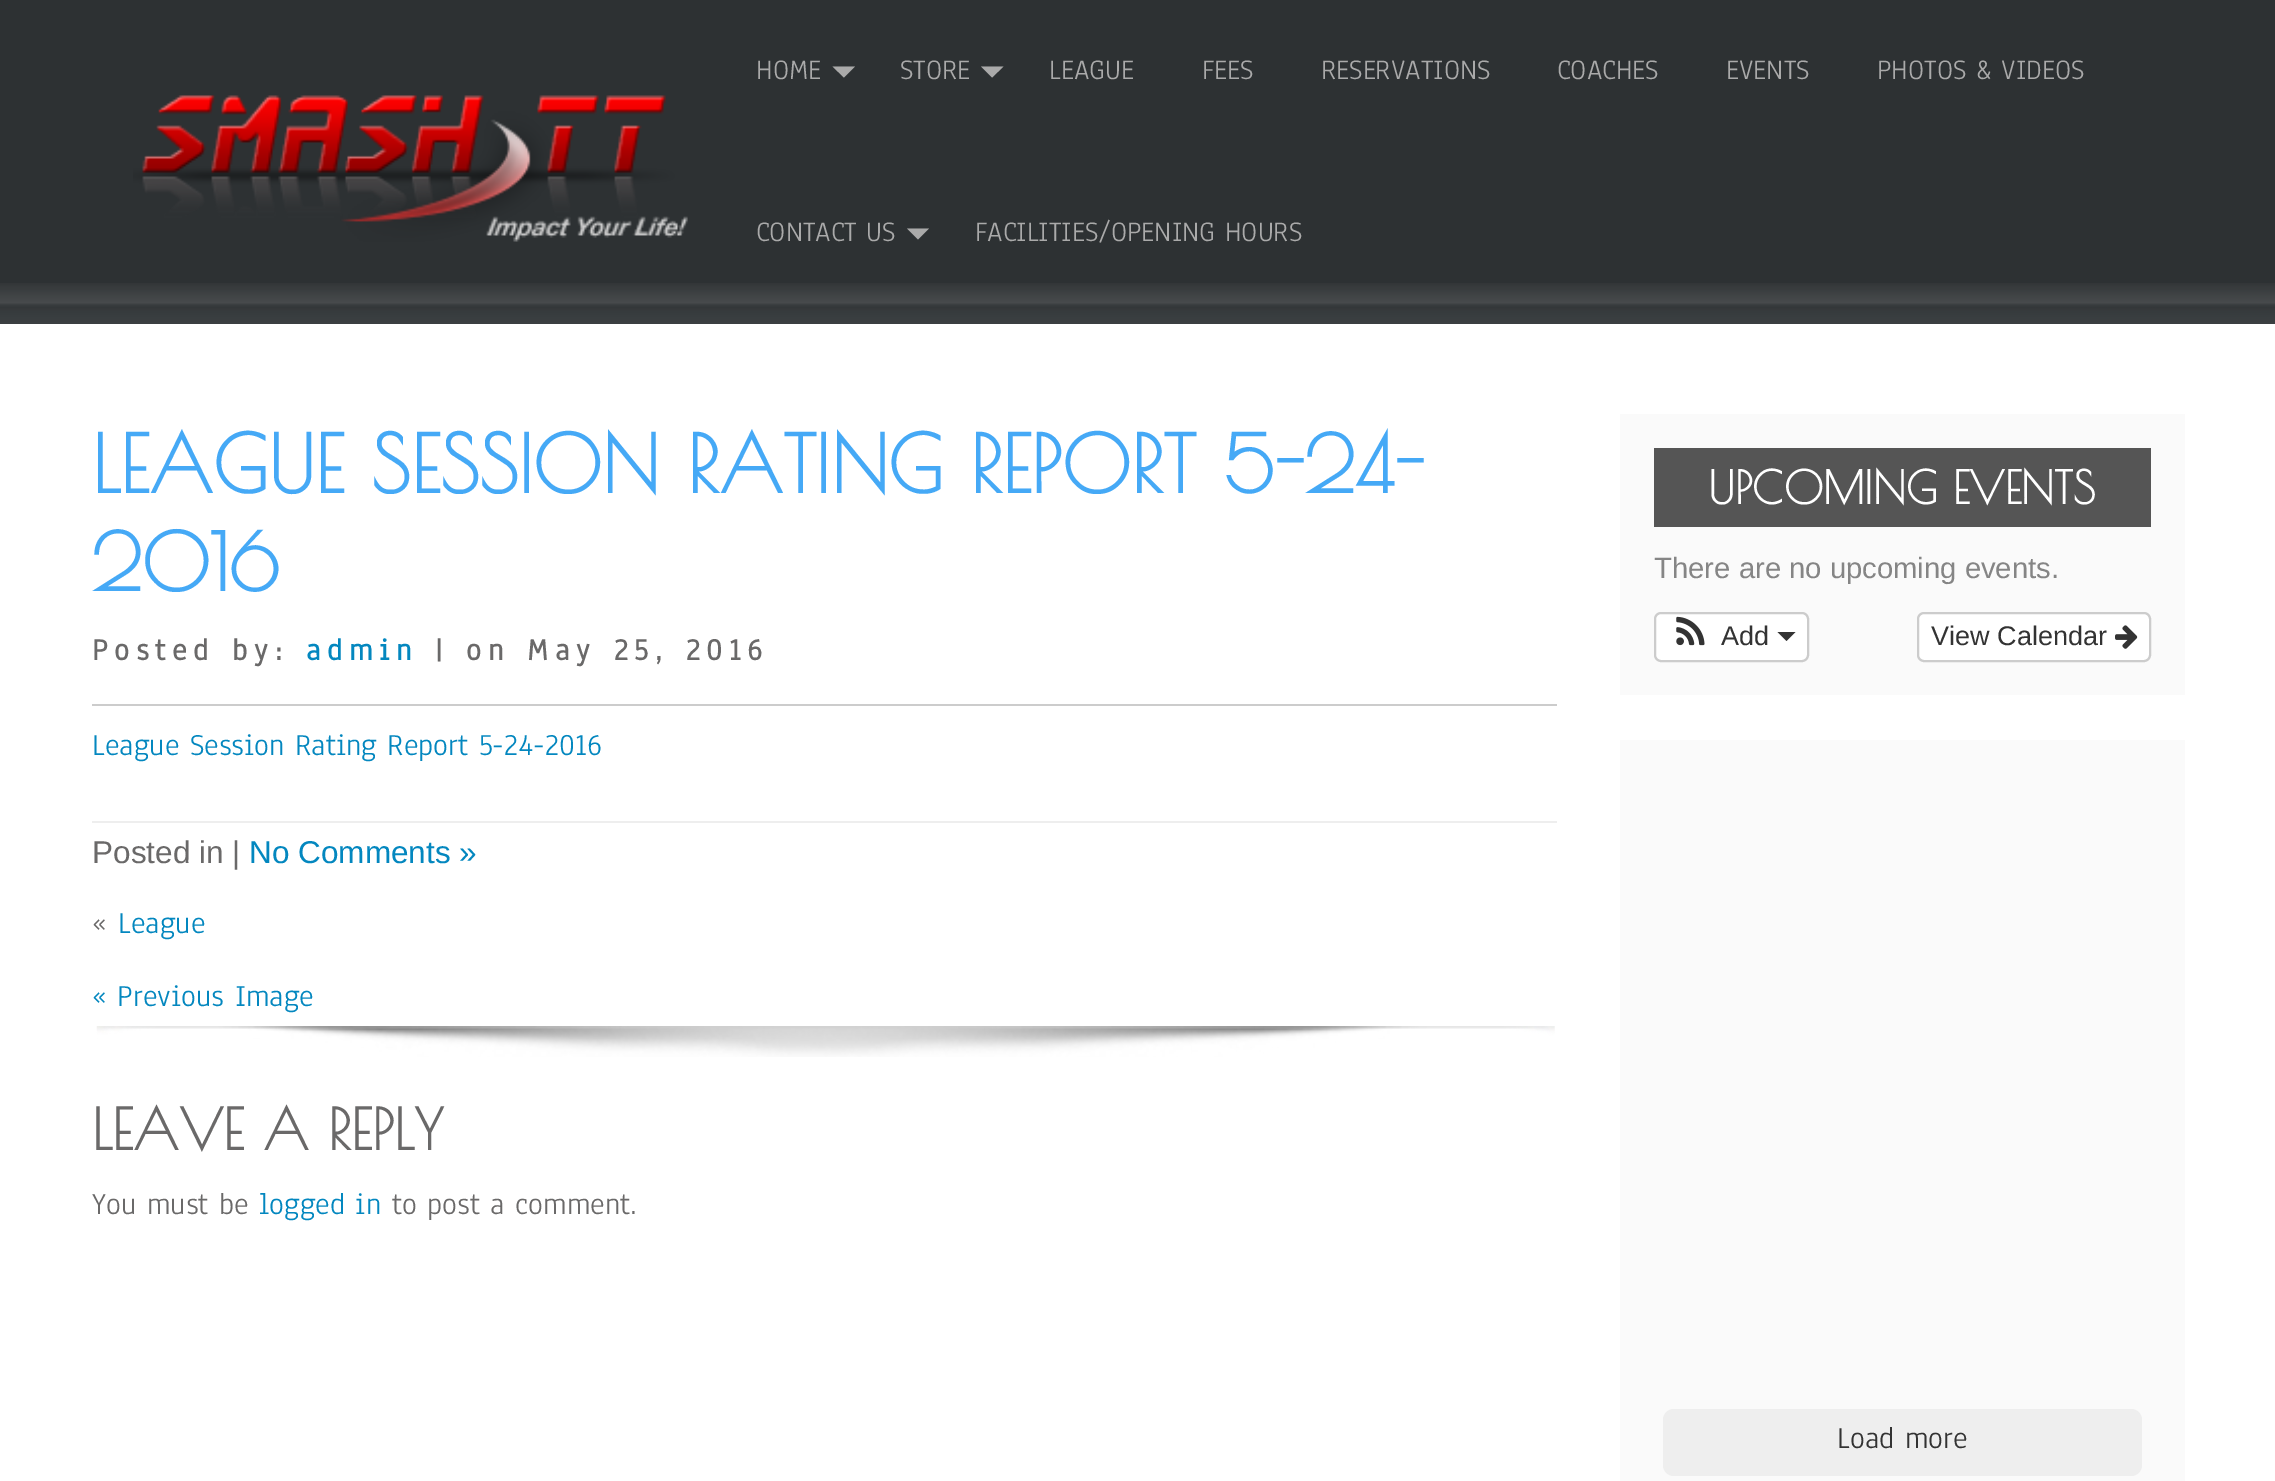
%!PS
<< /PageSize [2275 1481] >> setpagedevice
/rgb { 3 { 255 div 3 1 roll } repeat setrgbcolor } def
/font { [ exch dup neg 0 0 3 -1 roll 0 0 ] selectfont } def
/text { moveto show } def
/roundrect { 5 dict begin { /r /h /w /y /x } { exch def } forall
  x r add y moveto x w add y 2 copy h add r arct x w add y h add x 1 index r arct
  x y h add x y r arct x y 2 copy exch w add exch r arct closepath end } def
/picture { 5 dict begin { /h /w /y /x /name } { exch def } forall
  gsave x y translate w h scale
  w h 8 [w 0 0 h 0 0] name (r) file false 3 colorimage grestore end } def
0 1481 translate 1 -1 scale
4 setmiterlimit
255 255 255 rgb
0 0 2275 1481 rectfill
45 49 51 rgb
0 0 2275 283 rectfill
(img_01.rgb) 0 283 2275 41 picture
(img_02.rgb) 133 95 555 147 picture
170 170 170 rgb
832.5 66.5 moveto 22.5 0 rlineto -11 11 rlineto closepath fill
981 66.5 moveto 22.5 0 rlineto -11.5 11 rlineto closepath fill
907 228.5 moveto 22 0 rlineto -11 11 rlineto closepath fill
204 204 204 rgb
92 704 1465 2 rectfill
(img_03.rgb) 96 1026 1459 31 picture
238 238 238 rgb
92 821 1465 2 rectfill
250 250 250 rgb
1620 414 565 281 rectfill
85 85 85 rgb
1654 448 497 79 rectfill
255 255 255 rgb
1655 613 153 48 6 roundrect gsave fill grestore
204 204 204 rgb
2 setlinewidth
stroke
(img_04.rgb) 1676 616 29 30 picture
51 51 51 rgb
1777.5 632 moveto 18 0 rlineto -9 9 rlineto closepath fill
255 255 255 rgb
1918 613 232 48 6 roundrect gsave fill grestore
204 204 204 rgb
stroke
(img_05.rgb) 2115 625 23 24 picture
250 250 250 rgb
1620 740 565 741 rectfill
238 238 238 rgb
1663 1409 479 67 11 roundrect fill
/Anaheim-Regular 29.25 font
170 170 170 rgb
(HOME) 756 79 text
(STORE) 900 79 text
(LEAGUE) 1049 79 text
(FEES) 1202 79 text
(RESERVATIONS) 1321 79 text
(COACHES) 1557 79 text
(EVENTS) 1726 79 text
(PHOTOS & VIDEOS) 1877 79 text
(CONTACT US) 756 241 text
(FACILITIES/OPENING HOURS) 975 241 text
/PoiretOne-Bold 78.75 font
69 169 246 rgb
(LEAGUE SESSION RATING REPORT 5-24-) 92 493 text
(2016) 92 591 text
/Anaheim-Bold 31.5 font
106 105 105 rgb
92 660 moveto 6.75 0 (Posted by:) ashow
3 135 191 rgb
306 660 moveto 6.75 0 (admin) ashow
106 105 105 rgb
435 660 moveto 6.75 0 (| on May 25, 2016) ashow
/Anaheim-Regular 31.5 font
3 135 191 rgb
(League Session Rating Report 5-24-2016) 92 755 text
/LiberationSans-Regular 31.5 font
106 105 105 rgb
(Posted in |) 92 863 text
3 135 191 rgb
(No Comments ») 249 863 text
/Anaheim-Regular 31.5 font
106 105 105 rgb
(«) 92 933 text
3 135 191 rgb
(League) 118 933 text
(« Previous Image) 92 1006 text
/PoiretOne-Bold 56.25 font
106 105 105 rgb
(LEAVE A REPLY) 92 1150 text
/Anaheim-Regular 31.5 font
(You must be) 92 1214 text
3 135 191 rgb
(logged in) 259 1214 text
106 105 105 rgb
(to post a comment.) 392 1214 text
/PoiretOne-Bold 45 font
255 255 255 rgb
(UPCOMING EVENTS) 1708 504 text
/LiberationSans-Regular 29.25 font
133 133 133 rgb
(There are no upcoming events.) 1654 578 text
/LiberationSans-Regular 27 font
51 51 51 rgb
(Add) 1721 645 text
(View Calendar) 1931 645 text
/Anaheim-Regular 31.5 font
(Load more) 1837 1448 text
showpage
